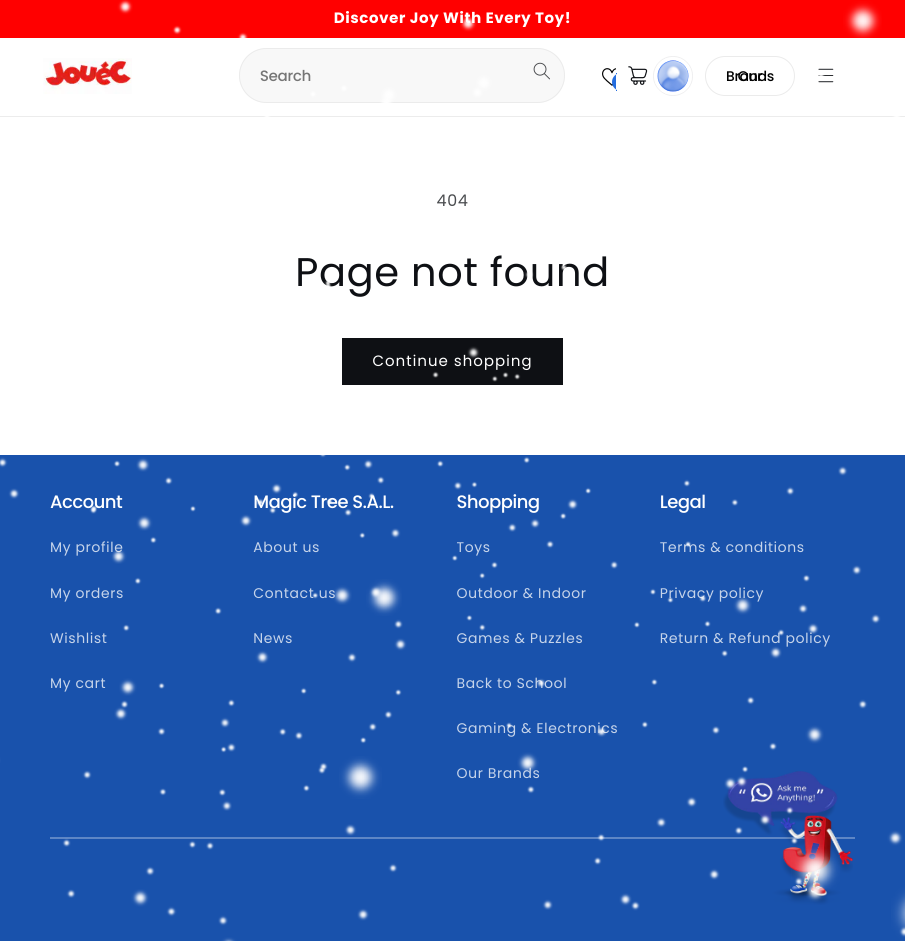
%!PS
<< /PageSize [905 941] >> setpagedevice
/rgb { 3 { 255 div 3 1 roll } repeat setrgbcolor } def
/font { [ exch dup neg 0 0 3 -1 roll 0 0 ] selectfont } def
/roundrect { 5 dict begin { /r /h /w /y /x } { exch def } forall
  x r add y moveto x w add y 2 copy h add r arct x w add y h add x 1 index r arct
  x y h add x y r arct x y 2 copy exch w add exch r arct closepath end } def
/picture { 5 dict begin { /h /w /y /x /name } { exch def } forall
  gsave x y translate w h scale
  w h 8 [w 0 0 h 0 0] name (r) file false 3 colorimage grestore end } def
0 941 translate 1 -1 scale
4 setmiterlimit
255 255 255 rgb
0 0 905 941 rectfill
255 0 0 rgb
0 0 905 38 rectfill
236 236 236 rgb
0 116 905 1 rectfill
(img_02.rgb) 43 58 89 36 picture
248 248 248 rgb
239.5 48.5 325 54 27 roundrect gsave fill grestore
235 235 235 rgb
stroke
(img_03.rgb) 533 62 17 18 picture
(img_04.rgb) 602 68 14 18 picture
36 109 223 rgb
621 73 moveto -5 0 rlineto 0 18 rlineto 5 0 rlineto -5 0 -9 -4 -9 -9 rcurveto 0 -5 4 -9 9 -9 rcurveto closepath fill
(img_05.rgb) 628 66 20 19 picture
(img_06.rgb) 653 56 40 40 picture
235 235 235 rgb
705.5 56.5 89 39 19.5 roundrect stroke
(img_07.rgb) 818 68 16 15 picture
14 16 20 rgb
342 338 221 47 rectfill
25 82 172 rgb
0 455 905 486 rectfill
94 134 197 rgb
50 837 805 2 rectfill
(img_08.rgb) 723 771 130 134 picture
/Poppins-Bold 15 font
255 255 255 rgb
334 23 moveto 0.6 0 (Discover Joy With Every Toy!) ashow
/Poppins-Medium 15 font
117 117 117 rgb
260 81 moveto -0.25 0 (Search) ashow
/Poppins-Medium 14 font
0 0 0 rgb
738 81 moveto -0.25 0 (Our) ashow
726 81 moveto -0.25 0 (Brands) ashow
/Poppins-Regular 16 font
74 76 79 rgb
437 206 moveto 0.6 0 (404) ashow
/Poppins-Regular 40 font
14 16 20 rgb
295 286 moveto 0.6 0 (Page not found) ashow
/Poppins-Regular 15 font
255 255 255 rgb
372 366 moveto 1 0 (Continue shopping) ashow
/Poppins-Medium 18 font
50 508 moveto -0.5 0 (Account) ashow
/Poppins-Regular 14 font
198 212 234 rgb
50 552 moveto 0.6 0 (My profile) ashow
50 598 moveto 0.6 0 (My orders) ashow
50 643 moveto 0.6 0 (Wishlist) ashow
50 688 moveto 0.6 0 (My cart) ashow
/Poppins-Medium 18 font
255 255 255 rgb
253 508 moveto -0.5 0 (Magic Tree S.A.L.) ashow
/Poppins-Regular 14 font
198 212 234 rgb
253 552 moveto 0.6 0 (About us) ashow
253 598 moveto 0.6 0 (Contact us) ashow
253 643 moveto 0.6 0 (News) ashow
/Poppins-Medium 18 font
255 255 255 rgb
457 508 moveto -0.5 0 (Shopping) ashow
/Poppins-Regular 14 font
198 212 234 rgb
457 552 moveto 0.6 0 (Toys) ashow
457 598 moveto 0.6 0 (Outdoor & Indoor) ashow
457 643 moveto 0.6 0 (Games & Puzzles) ashow
457 688 moveto 0.6 0 (Back to School) ashow
457 733 moveto 0.6 0 (Gaming & Electronics) ashow
457 778 moveto 0.6 0 (Our Brands) ashow
/Poppins-Medium 18 font
255 255 255 rgb
660 508 moveto -0.5 0 (Legal) ashow
/Poppins-Regular 14 font
198 212 234 rgb
660 552 moveto 0.6 0 (Terms & conditions) ashow
660 598 moveto 0.6 0 (Privacy policy) ashow
660 643 moveto 0.6 0 (Return & Refund policy) ashow
(img_01.rgb) 0 0 905 941 picture
showpage
